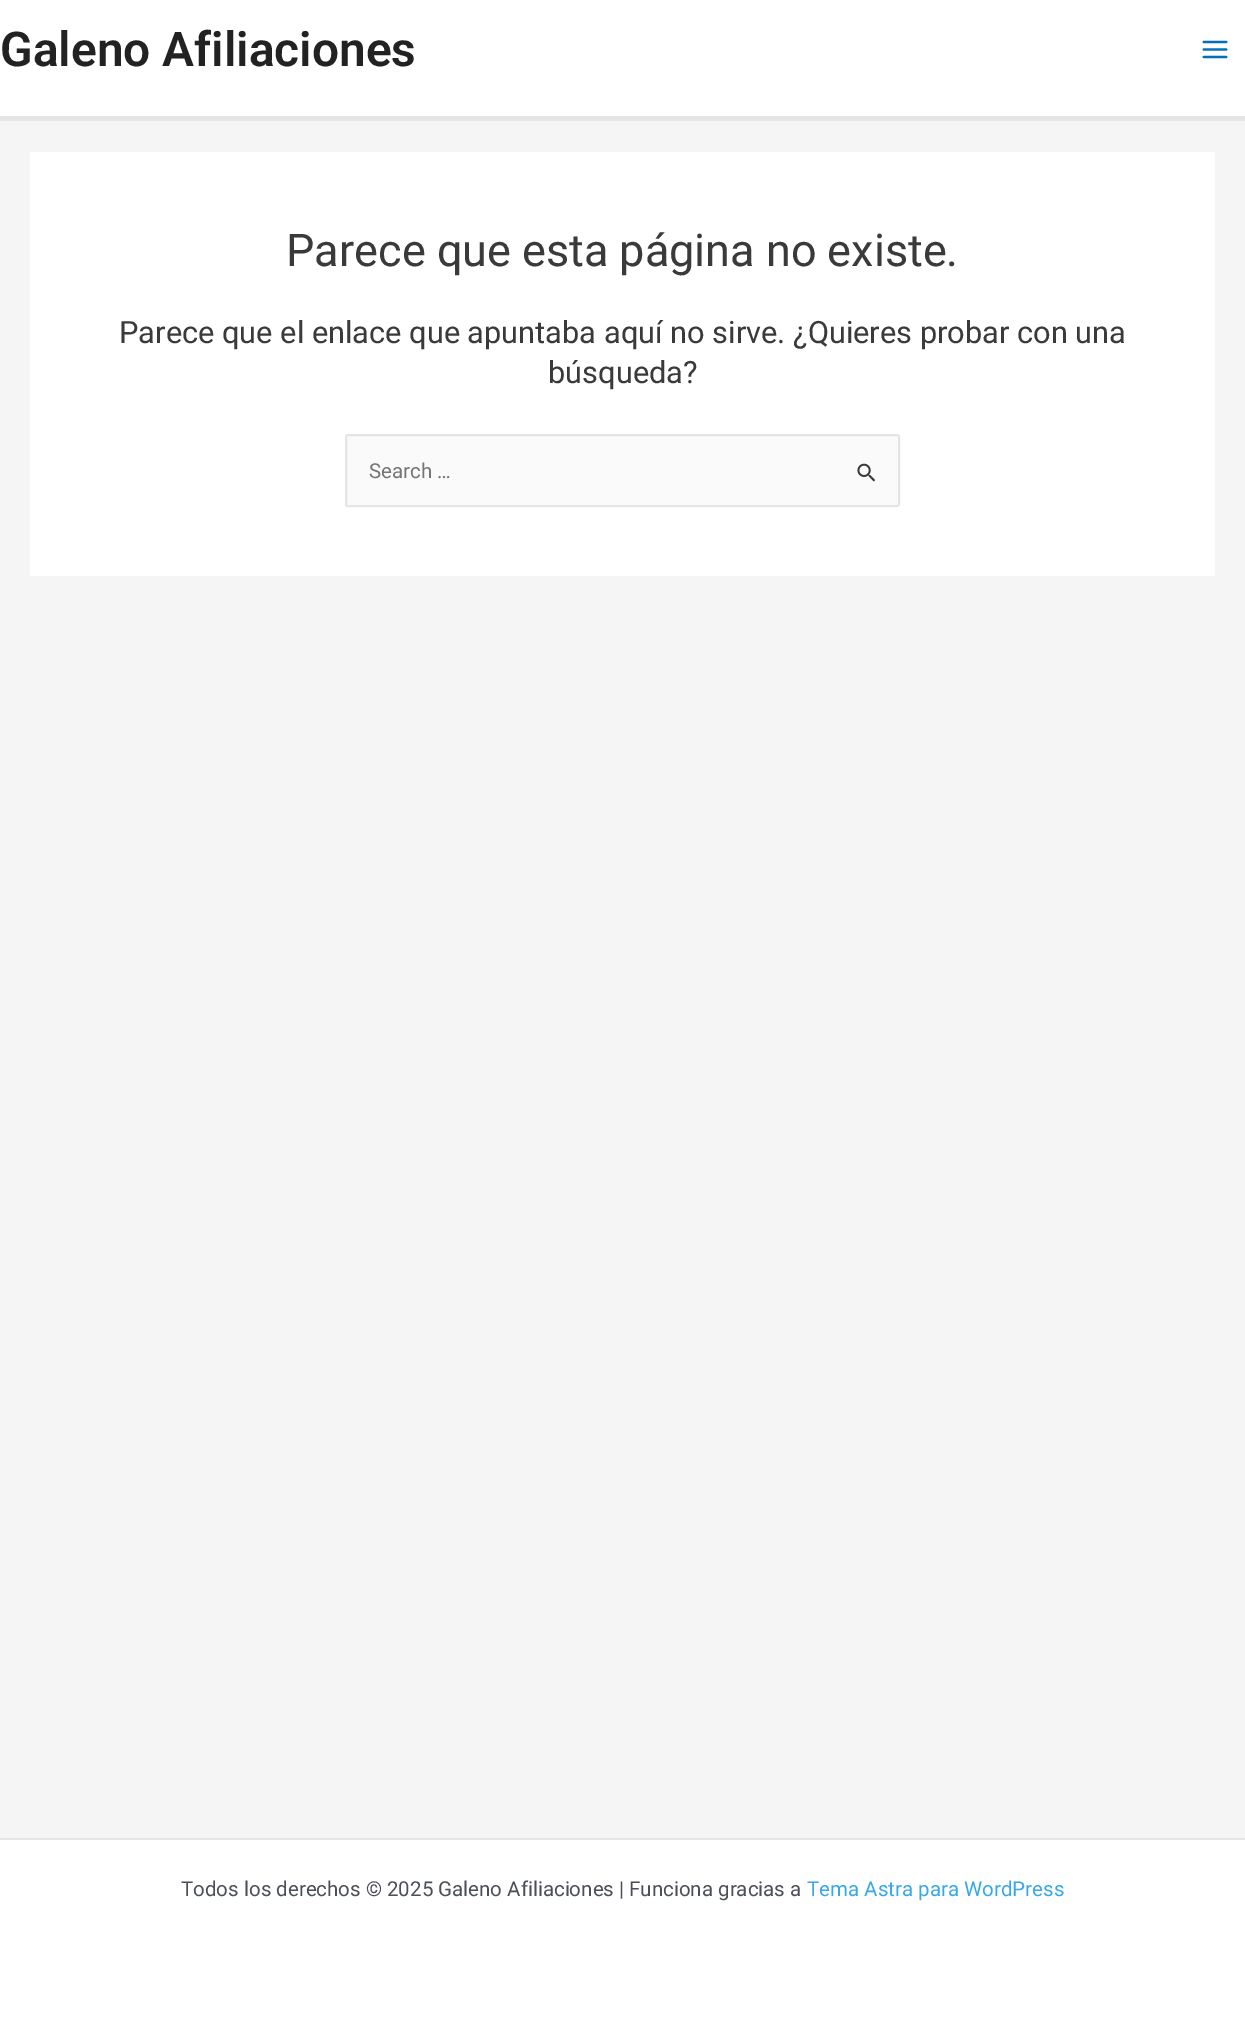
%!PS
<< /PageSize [1245 2019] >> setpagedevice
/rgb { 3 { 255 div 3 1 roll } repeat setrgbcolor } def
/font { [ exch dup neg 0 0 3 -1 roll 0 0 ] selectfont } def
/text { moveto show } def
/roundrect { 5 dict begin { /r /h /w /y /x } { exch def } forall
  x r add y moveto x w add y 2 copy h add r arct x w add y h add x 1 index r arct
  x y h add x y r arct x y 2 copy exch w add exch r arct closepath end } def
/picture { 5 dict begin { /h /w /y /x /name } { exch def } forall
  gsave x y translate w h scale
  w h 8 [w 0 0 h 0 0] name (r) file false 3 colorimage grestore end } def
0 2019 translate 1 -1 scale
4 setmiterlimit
245 245 245 rgb
0 0 1245 2019 rectfill
255 255 255 rgb
0 0 1245 116 rectfill
229 229 229 rgb
0 116 1245 5 rectfill
(img_01.rgb) 1202 40 26 19 picture
255 255 255 rgb
30 152 1185 424 rectfill
250 250 250 rgb
346 435 553 71 2 roundrect gsave fill grestore
229 229 229 rgb
2 setlinewidth
stroke
(img_02.rgb) 857 463 18 19 picture
255 255 255 rgb
0 1840 1245 179 rectfill
229 229 229 rgb
0 1838 1245 2 rectfill
/Roboto-SemiBold 47.9 font
34 34 34 rgb
(Galeno Afiliaciones) 0 66 text
/Roboto-Regular 45 font
58 58 58 rgb
(Parece que esta página no existe.) 286 266 text
/Roboto-Regular 30.75 font
(Parece que el enlace que apuntaba aquí no sirve. ¿Quieres probar con una) 119 343 text
(búsqueda?) 548 383 text
/Roboto-Regular 20.5 font
117 117 117 rgb
(Search …) 369 478 text
75 79 88 rgb
(Todos los derechos © 2025 Galeno Afiliaciones | Funciona gracias a) 181 1896 text
55 169 235 rgb
(Tema Astra para WordPress) 807 1896 text
showpage
